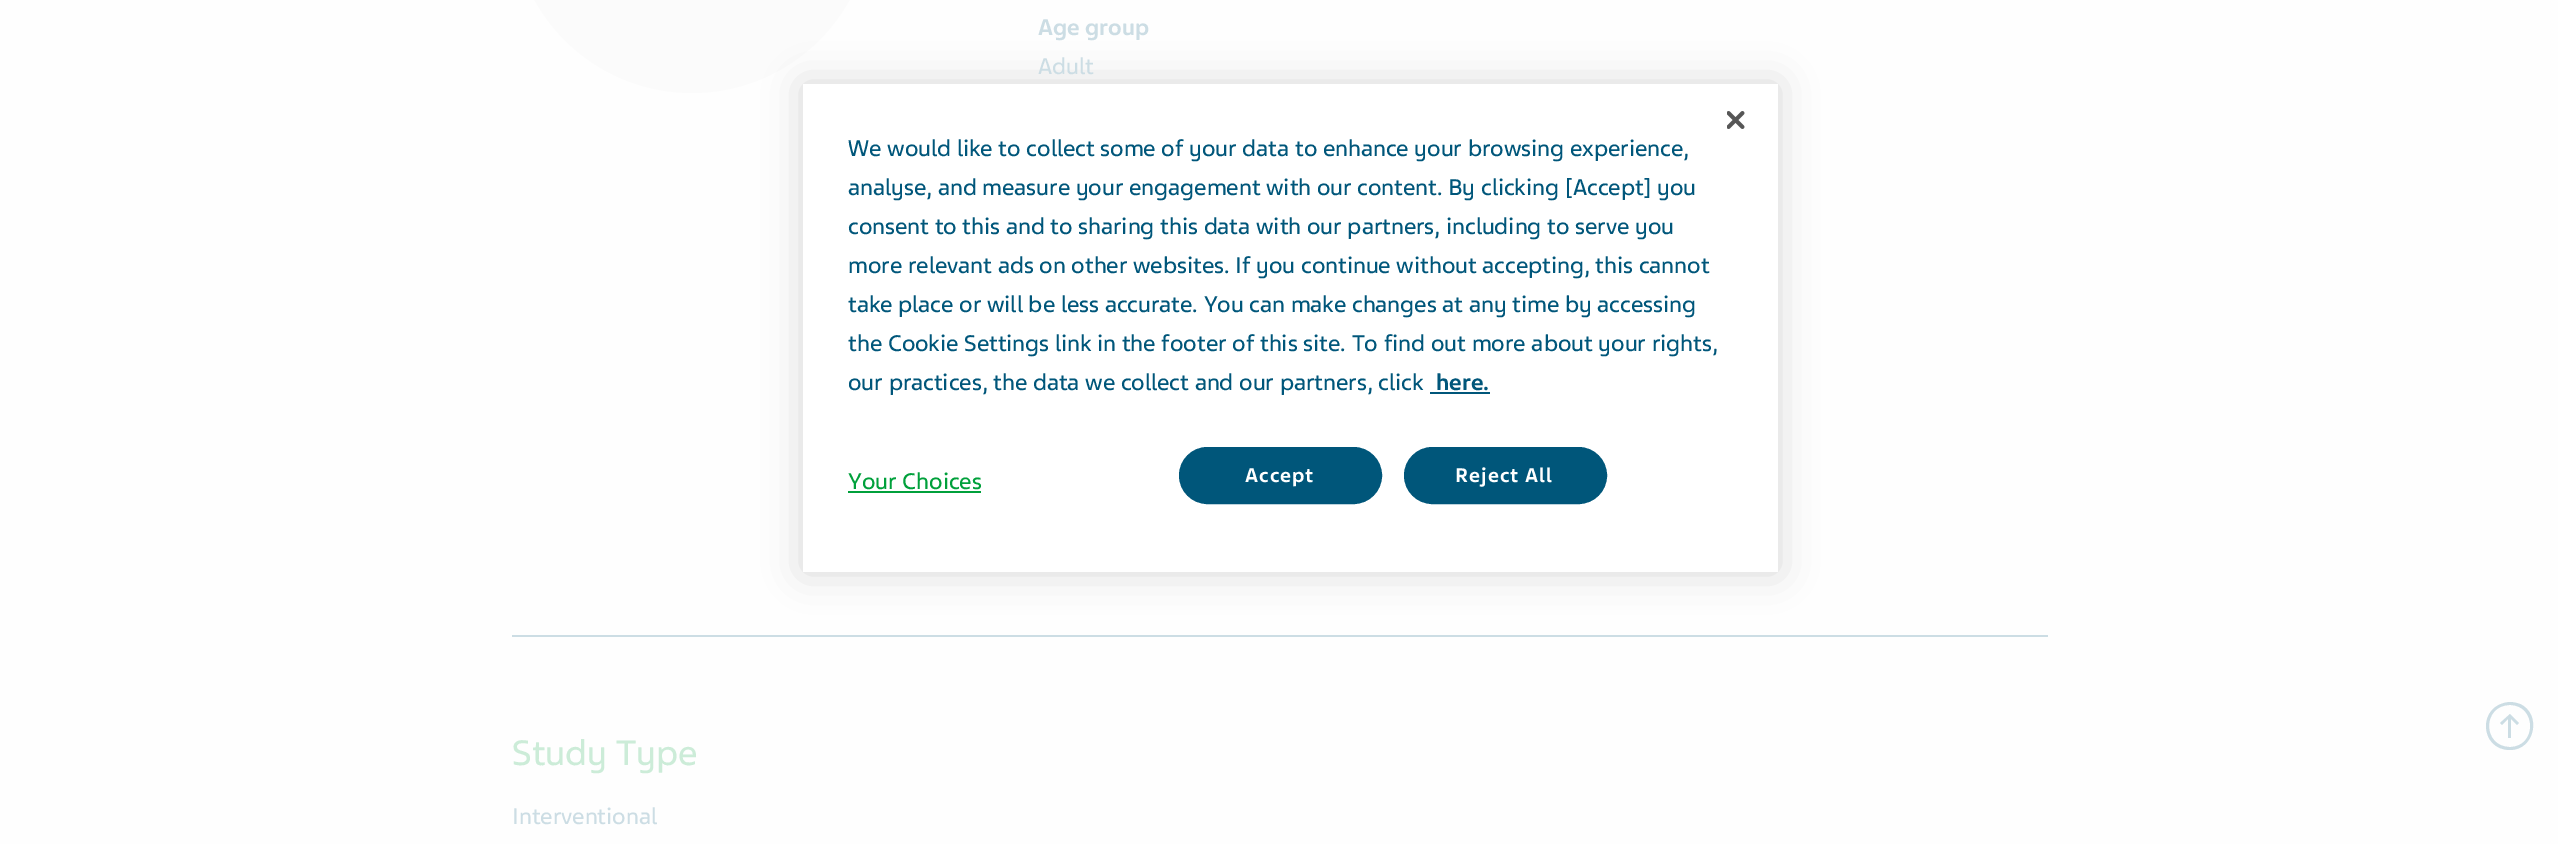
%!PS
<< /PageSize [2558 844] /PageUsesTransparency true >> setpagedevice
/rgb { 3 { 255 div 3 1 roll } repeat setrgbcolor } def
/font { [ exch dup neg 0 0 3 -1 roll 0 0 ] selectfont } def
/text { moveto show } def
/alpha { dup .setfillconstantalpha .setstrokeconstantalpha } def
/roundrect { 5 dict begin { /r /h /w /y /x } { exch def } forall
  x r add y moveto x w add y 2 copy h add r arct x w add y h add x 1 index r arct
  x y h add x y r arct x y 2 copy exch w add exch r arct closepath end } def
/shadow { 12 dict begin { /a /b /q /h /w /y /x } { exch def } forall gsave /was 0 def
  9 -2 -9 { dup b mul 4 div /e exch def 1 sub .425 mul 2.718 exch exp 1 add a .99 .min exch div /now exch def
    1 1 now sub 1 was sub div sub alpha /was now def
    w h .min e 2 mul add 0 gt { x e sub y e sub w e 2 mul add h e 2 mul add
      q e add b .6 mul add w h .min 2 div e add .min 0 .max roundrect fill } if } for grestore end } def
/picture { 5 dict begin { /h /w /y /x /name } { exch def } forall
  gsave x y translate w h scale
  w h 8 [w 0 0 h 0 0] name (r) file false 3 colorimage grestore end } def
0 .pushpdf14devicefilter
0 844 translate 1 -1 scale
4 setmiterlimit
254 254 254 rgb
0 0 2558 844 rectfill
251 251 251 rgb
512 -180 360 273 180 roundrect fill
204 221 228 rgb
512 635 1536 2 rectfill
2510 750 moveto -31 0 -33 -46 0 -48 rcurveto 3 0 7 1 10 2 rcurveto 22 10 15 46 -10 46 rcurveto closepath 2519 723 moveto -2 2 rlineto -6 -6 rlineto 0 19 rlineto -3 0 rlineto 0 -19 rlineto -6 6 rlineto -2 -2 rlineto 10 -9 rlineto closepath 2510 705 moveto 27 0 27 42 0 42 rcurveto -28 0 -28 -42 0 -42 rcurveto closepath eofill
0 0 0 rgb
803 84 975 488 0 19 0.15 shadow
255 255 255 rgb
803 84 975 488 rectfill
(img_01.rgb) 1727 111 18 18 picture
0 86 122 rgb
1430 392 60 2 rectfill
0 160 59 rgb
848 491 133 2 rectfill
0 86 122 rgb
1180 448 201 55 27.5 roundrect gsave fill grestore
2 setlinewidth
stroke
1405 448 201 55 27.5 roundrect gsave fill grestore
stroke
/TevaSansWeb-Bold 24 font
204 221 228 rgb
(Age group) 1038 35 text
/TevaSansWeb-Regular 24 font
(Adult) 1038 74 text
/TevaSansWeb-Regular 37.5 font
204 236 216 rgb
(Study Type) 512 765 text
/TevaSansWeb-Regular 24 font
204 221 228 rgb
(Interventional) 512 824 text
0 86 122 rgb
(We would like to collect some of your data to enhance your browsing experience,) 848 156 text
(analyse, and measure your engagement with our content. By clicking [Accept] you) 848 195 text
(consent to this and to sharing this data with our partners, including to serve you) 848 234 text
(more relevant ads on other websites. If you continue without accepting, this cannot) 848 273 text
(take place or will be less accurate. You can make changes at any time by accessing) 848 312 text
(the Cookie Settings link in the footer of this site. To find out more about your rights,) 848 351 text
(our practices, the data we collect and our partners, click) 848 390 text
/TevaSansWeb-Bold 24 font
(here.) 1436 390 text
/TevaSansWeb-Regular 24 font
0 160 59 rgb
(Your Choices) 848 489 text
/TevaSansWeb-Bold 21 font
255 255 255 rgb
1245 482 moveto 1 0 (Accept) ashow
1455 482 moveto 1 0 (Reject All) ashow
.poppdf14devicefilter showpage
